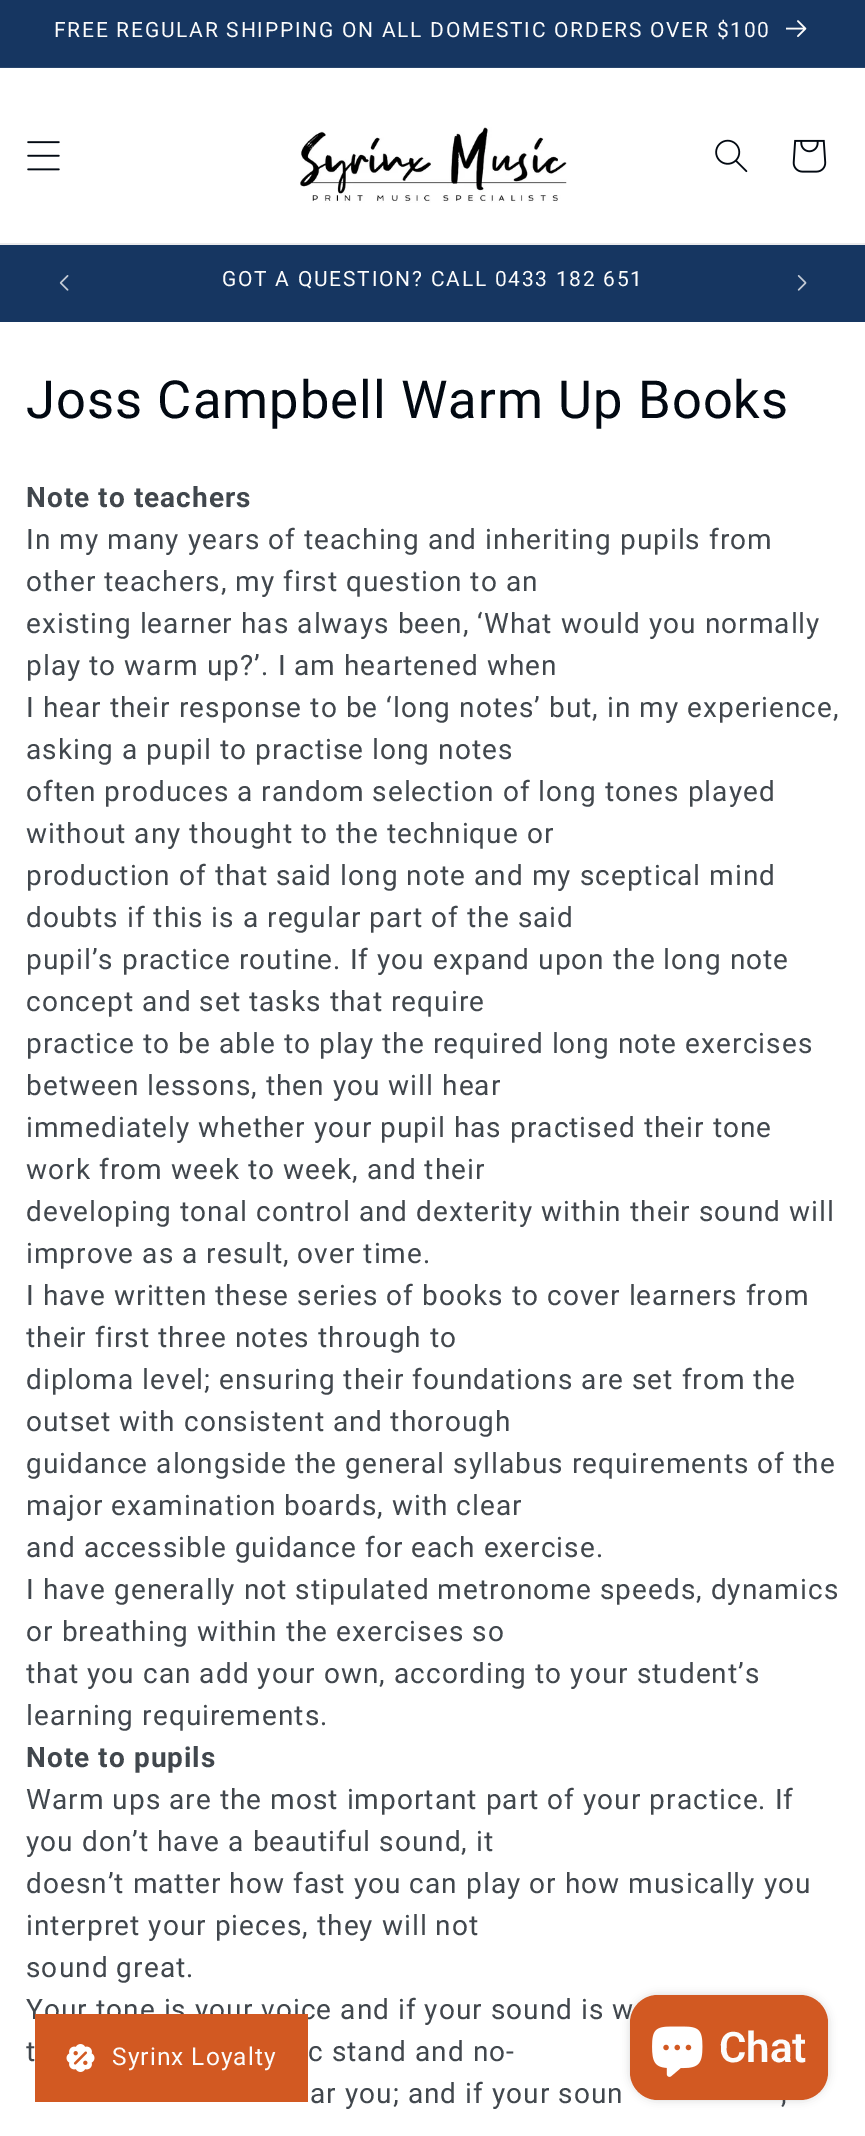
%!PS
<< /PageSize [865 2136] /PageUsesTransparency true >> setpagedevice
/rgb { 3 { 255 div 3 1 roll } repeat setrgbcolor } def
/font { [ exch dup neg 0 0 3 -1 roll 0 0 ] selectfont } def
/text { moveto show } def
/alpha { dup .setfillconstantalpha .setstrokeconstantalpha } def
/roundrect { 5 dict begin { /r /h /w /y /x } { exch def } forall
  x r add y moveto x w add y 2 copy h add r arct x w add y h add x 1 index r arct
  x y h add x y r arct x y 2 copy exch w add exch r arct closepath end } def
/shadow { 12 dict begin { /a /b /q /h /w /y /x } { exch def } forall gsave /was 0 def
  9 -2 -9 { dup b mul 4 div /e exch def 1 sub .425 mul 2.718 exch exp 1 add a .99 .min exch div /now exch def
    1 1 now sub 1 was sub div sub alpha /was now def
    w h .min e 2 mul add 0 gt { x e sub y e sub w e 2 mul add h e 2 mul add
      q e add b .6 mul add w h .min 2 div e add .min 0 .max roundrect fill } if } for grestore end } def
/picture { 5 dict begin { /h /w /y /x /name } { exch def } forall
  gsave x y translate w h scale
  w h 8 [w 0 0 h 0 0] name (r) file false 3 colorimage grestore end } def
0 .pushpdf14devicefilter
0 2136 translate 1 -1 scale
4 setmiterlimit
255 255 255 rgb
0 0 865 2136 rectfill
22 54 97 rgb
0 0 865 67 rectfill
40 70 109 rgb
0 67 865 1 rectfill
(img_01.rgb) 786 20 21 17 picture
235 235 236 rgb
0 243 865 2 rectfill
(img_02.rgb) 27 141 33 30 picture
(img_03.rgb) 300 127 267 76 picture
(img_04.rgb) 715 139 33 34 picture
(img_05.rgb) 792 139 35 34 picture
22 54 97 rgb
0 245 865 77 rectfill
(img_06.rgb) 59 275 10 16 picture
(img_07.rgb) 797 275 10 16 picture
0 0 0 rgb
630 1995 198 105 28 4.5 0.15 shadow
/Roboto-Regular 21 font
252 252 252 rgb
54 37 moveto 1.75 0 (FREE REGULAR SHIPPING ON ALL DOMESTIC ORDERS OVER $100) ashow
222 286 moveto 1.75 0 (GOT A QUESTION? CALL 0433 182 651) ashow
/Roboto-Regular 52.5 font
2 9 18 rgb
26 418 moveto 1.05 0 (Joss Campbell Warm Up Books) ashow
/Roboto-Bold 28 font
65 71 77 rgb
26 507 moveto 1.05 0 (Note to teachers) ashow
/Roboto-Regular 28 font
26 549 moveto 1.05 0 (In my many years of teaching and inheriting pupils from) ashow
26 591 moveto 1.05 0 (other teachers, my first question to an) ashow
26 633 moveto 1.05 0 (existing learner has always been, ‘What would you normally) ashow
26 675 moveto 1.05 0 (play to warm up?’. I am heartened when) ashow
26 717 moveto 1.05 0 (I hear their response to be ‘long notes’ but, in my experience,) ashow
26 759 moveto 1.05 0 (asking a pupil to practise long notes) ashow
26 801 moveto 1.05 0 (often produces a random selection of long tones played) ashow
26 843 moveto 1.05 0 (without any thought to the technique or) ashow
26 885 moveto 1.05 0 (production of that said long note and my sceptical mind) ashow
26 927 moveto 1.05 0 (doubts if this is a regular part of the said) ashow
26 969 moveto 1.05 0 (pupil’s practice routine. If you expand upon the long note) ashow
26 1011 moveto 1.05 0 (concept and set tasks that require) ashow
26 1053 moveto 1.05 0 (practice to be able to play the required long note exercises) ashow
26 1095 moveto 1.05 0 (between lessons, then you will hear) ashow
26 1137 moveto 1.05 0 (immediately whether your pupil has practised their tone) ashow
26 1179 moveto 1.05 0 (work from week to week, and their) ashow
26 1221 moveto 1.05 0 (developing tonal control and dexterity within their sound will) ashow
26 1263 moveto 1.05 0 (improve as a result, over time.) ashow
26 1305 moveto 1.05 0 (I have written these series of books to cover learners from) ashow
26 1347 moveto 1.05 0 (their first three notes through to) ashow
26 1389 moveto 1.05 0 (diploma level; ensuring their foundations are set from the) ashow
26 1431 moveto 1.05 0 (outset with consistent and thorough) ashow
26 1473 moveto 1.05 0 (guidance alongside the general syllabus requirements of the) ashow
26 1515 moveto 1.05 0 (major examination boards, with clear) ashow
26 1557 moveto 1.05 0 (and accessible guidance for each exercise.) ashow
26 1599 moveto 1.05 0 (I have generally not stipulated metronome speeds, dynamics) ashow
26 1641 moveto 1.05 0 (or breathing within the exercises so) ashow
26 1683 moveto 1.05 0 (that you can add your own, according to your student’s) ashow
26 1725 moveto 1.05 0 (learning requirements.) ashow
/Roboto-Bold 28 font
26 1767 moveto 1.05 0 (Note to pupils) ashow
/Roboto-Regular 28 font
26 1809 moveto 1.05 0 (Warm ups are the most important part of your practice. If) ashow
26 1851 moveto 1.05 0 (you don’t have a beautiful sound, it) ashow
26 1893 moveto 1.05 0 (doesn’t matter how fast you can play or how musically you) ashow
26 1935 moveto 1.05 0 (interpret your pieces, they will not) ashow
26 1977 moveto 1.05 0 (sound great.) ashow
26 2019 moveto 1.05 0 (Your tone is your voice and if your sound is w) ashow
26 2061 moveto 1.05 0 (t) ashow
308 2061 moveto 1.05 0 (c stand and no-) ashow
310 2103 moveto 1.05 0 (ar you; and if your soun) ashow
781 2103 moveto 1.05 0 (,) ashow
210 89 34 rgb
35 2014 273 88 rectfill
(img_08.rgb) 66 2044 29 28 picture
/Roboto-Regular 24.5 font
252 252 252 rgb
112 2065 moveto 1.05 0 (Syrinx Loyalty) ashow
210 89 34 rgb
630 1995 198 105 28 roundrect fill
(img_09.rgb) 652 2026 51 51 picture
/Roboto-SemiBold 42 font
252 252 252 rgb
(Chat) 719 2062 text
.poppdf14devicefilter showpage
